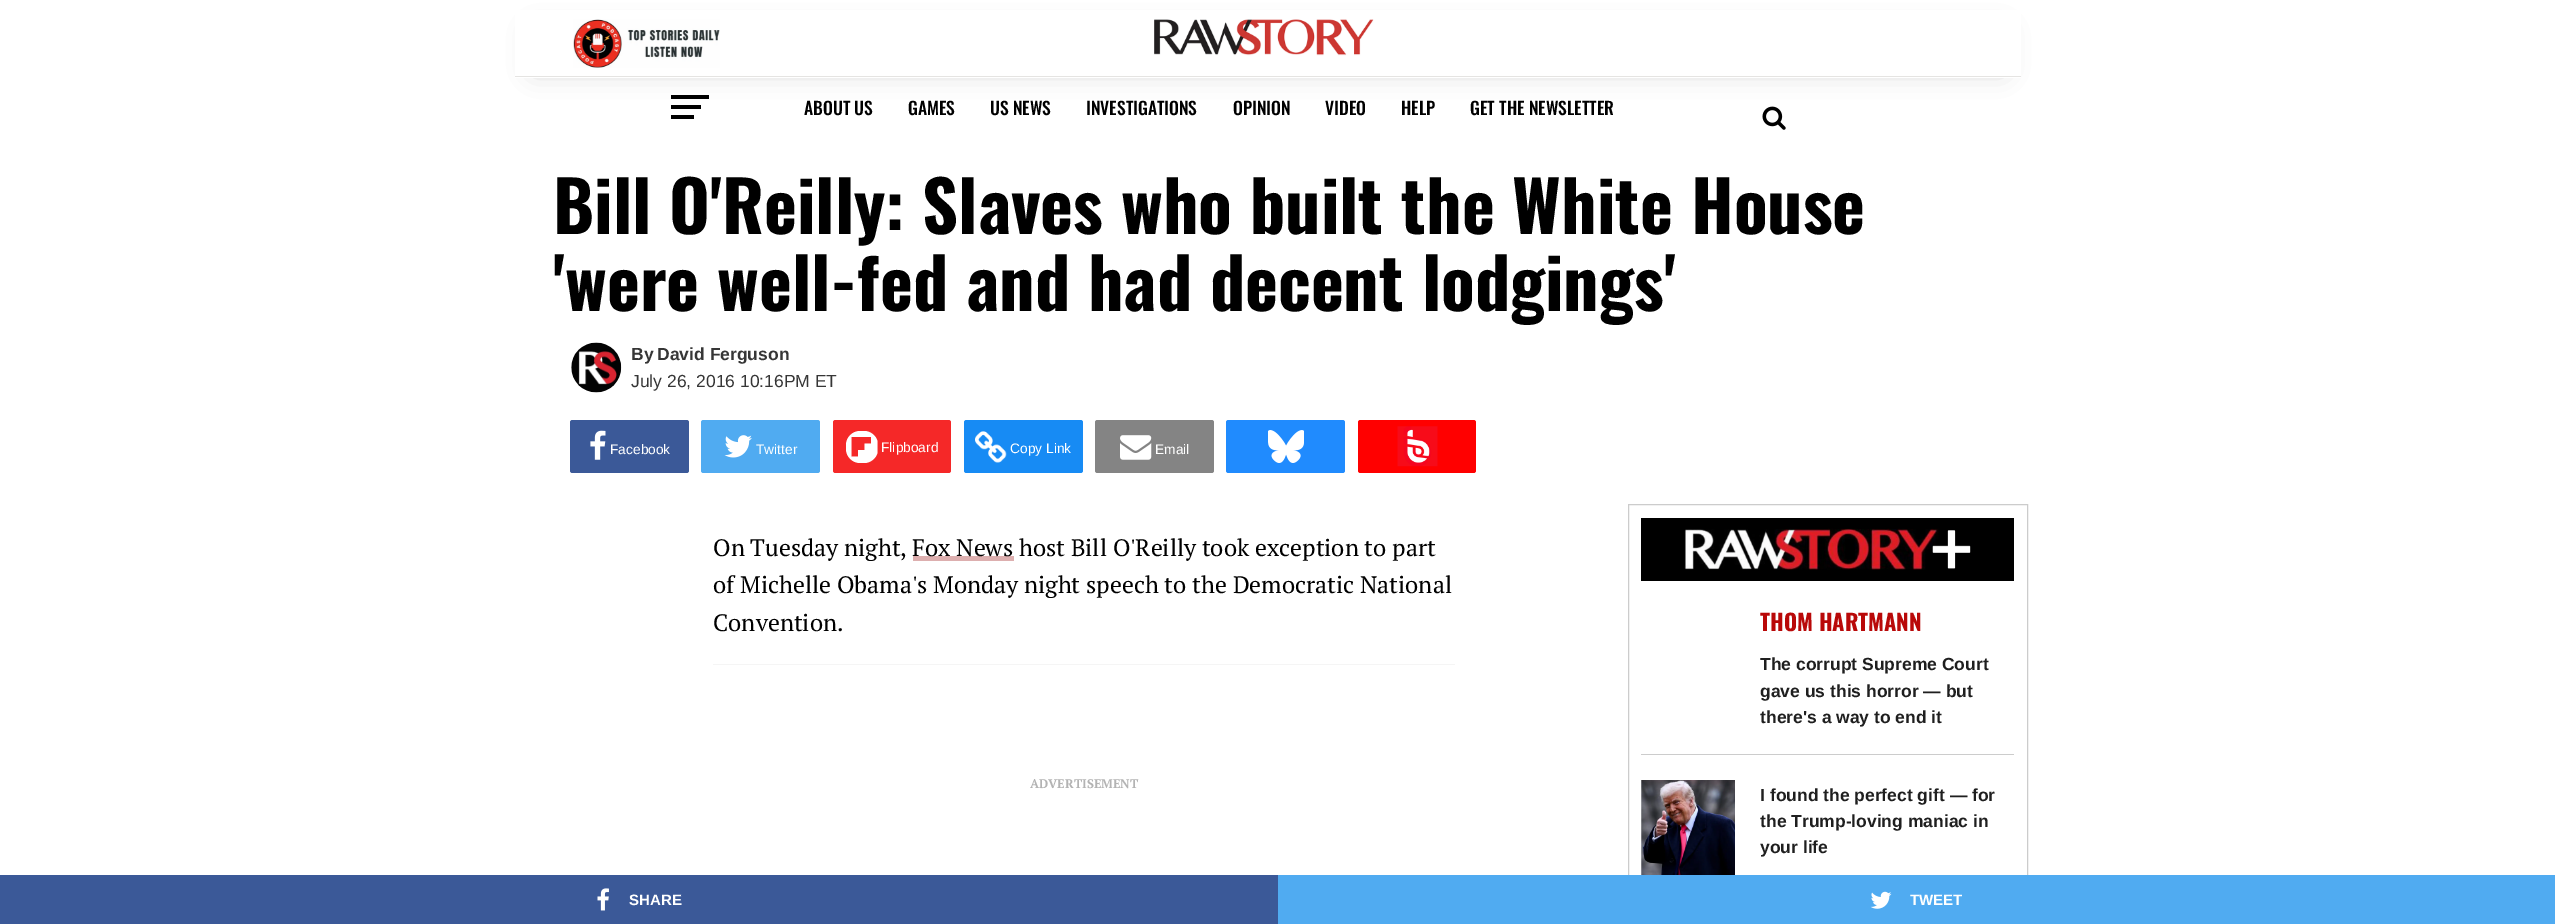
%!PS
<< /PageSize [2555 924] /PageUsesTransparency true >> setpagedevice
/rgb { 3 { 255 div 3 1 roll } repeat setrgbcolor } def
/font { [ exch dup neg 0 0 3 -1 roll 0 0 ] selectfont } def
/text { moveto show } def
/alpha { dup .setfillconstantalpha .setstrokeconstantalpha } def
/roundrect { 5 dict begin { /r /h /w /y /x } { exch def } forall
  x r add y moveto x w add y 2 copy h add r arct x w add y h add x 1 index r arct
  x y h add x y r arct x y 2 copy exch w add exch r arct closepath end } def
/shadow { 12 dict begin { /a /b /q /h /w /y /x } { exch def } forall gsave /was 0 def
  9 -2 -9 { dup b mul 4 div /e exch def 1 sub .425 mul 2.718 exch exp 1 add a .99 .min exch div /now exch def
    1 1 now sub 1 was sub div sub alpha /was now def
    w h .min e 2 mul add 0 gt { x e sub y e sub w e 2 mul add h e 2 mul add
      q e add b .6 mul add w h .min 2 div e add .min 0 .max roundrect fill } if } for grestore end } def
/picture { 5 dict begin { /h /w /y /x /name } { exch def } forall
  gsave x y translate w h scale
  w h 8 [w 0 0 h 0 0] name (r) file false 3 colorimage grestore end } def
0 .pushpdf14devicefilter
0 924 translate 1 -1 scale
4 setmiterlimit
255 255 255 rgb
0 0 2555 924 rectfill
0 0 0 rgb
534 31 1469 40 0 12.5 0.2 shadow
255 255 255 rgb
515 10 1506 68 rectfill
229 228 226 rgb
515 76 1506 1 rectfill
(img_01.rgb) 573 19 147 49 picture
(img_02.rgb) 1154 19 220 37 picture
0 0 0 rgb
671 95 38 4 rectfill
671 105 30 4 rectfill
671 115 23 4 rectfill
(img_03.rgb) 1762 106 24 24 picture
(img_04.rgb) 571 342 51 51 picture
59 89 152 rgb
570 420 119 53 2.5 roundrect fill
(img_05.rgb) 590 430 16 30 picture
80 171 241 rgb
701 420 119 53 2.5 roundrect fill
(img_06.rgb) 724 435 28 23 picture
245 40 40 rgb
833 420 118 53 2.5 roundrect fill
255 255 255 rgb
860 431 moveto -7.5 0 -14 6.5 -14 14 rcurveto 0 4 rlineto 0 7.5 6.5 14 14 14 rcurveto 4 0 rlineto 6.5 0 12 -4.5 13.5 -10.5 rcurveto 0 -11 rlineto -1.5 -6 -7 -10.5 -13.5 -10.5 rcurveto closepath 871 443.5 moveto 0 -6.5 rlineto -19.5 0 rlineto 0 19.5 rlineto 6.5 0 rlineto 0 -6.5 rlineto 6.5 0 rlineto 0 -6.5 rlineto closepath eofill
23 139 244 rgb
964 420 119 53 2.5 roundrect fill
(img_07.rgb) 975 431 32 32 picture
132 132 132 rgb
1095 420 119 53 2.5 roundrect fill
(img_08.rgb) 1120 435 32 25 picture
32 139 254 rgb
1226 420 119 53 2.5 roundrect fill
(img_09.rgb) 1268 430 36 33 picture
255 0 0 rgb
1358 420 118 53 2.5 roundrect fill
(img_10.rgb) 1397 426 41 41 picture
221 175 175 rgb
913 556 101 5 rectfill
245 245 245 rgb
713 664 742 1 rectfill
59 89 152 rgb
0 875 1278 49 rectfill
(img_11.rgb) 597 888 12 23 picture
204 204 204 rgb
1628.5 504.5 399 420 rectstroke
80 171 241 rgb
1278 875 1277 49 rectfill
(img_12.rgb) 1870 891 22 18 picture
0 0 0 rgb
1641 518 373 63 rectfill
(img_13.rgb) 1684 528 287 42 picture
204 204 204 rgb
1641 754 373 1 rectfill
(img_14.rgb) 1641 780 94 95 picture
/Oswald-Medium 17.5 font
0 0 0 rgb
(ABOUT US) 804 115 text
(GAMES) 908 115 text
(US NEWS) 990 115 text
(INVESTIGATIONS) 1086 115 text
(OPINION) 1233 115 text
(VIDEO) 1325 115 text
(HELP) 1401 115 text
(GET THE NEWSLETTER) 1470 115 text
/Oswald-Bold 70 font
(Bill O'Reilly: Slaves who built the White House) 553 234 text
('were well-fed and had decent lodgings') 553 311 text
/LiberationSans-Bold 17.5 font
54 54 54 rgb
(By) 631 360 text
(David Ferguson) 657 360 text
/LiberationSans-Regular 17.5 font
(July 26, 2016 10:16PM ET) 631 387 text
/LiberationSans-Regular 13.75 font
255 255 255 rgb
(Facebook) 610 454 text
(Twitter) 756 454 text
(Flipboard) 881 452 text
(Copy Link) 1010 453 text
(Email) 1155 454 text
/PTSerif-Regular 23.75 font
0 0 0 rgb
(On Tuesday night,) 713 556 text
(Fox News host Bill O'Reilly took exception to part) 912 556 text
(of Michelle Obama's Monday night speech to the Democratic National) 713 593 text
(Convention.) 713 631 text
/PTSerif-Bold 12.5 font
179 179 179 rgb
(ADVERTISEMENT) 1030 788 text
/LiberationSans-Bold 15 font
255 255 255 rgb
(SHARE) 629 905 text
(TWEET) 1910 905 text
/Oswald-Bold 22.5 font
185 9 9 rgb
(THOM HARTMANN) 1760 631 text
/LiberationSans-Bold 17.5 font
31 31 31 rgb
(The corrupt Supreme Court) 1760 670 text
(gave us this horror — but) 1760 697 text
(there's a way to end it) 1760 723 text
(I found the perfect gift — for) 1760 801 text
(the Trump-loving maniac in) 1760 827 text
(your life) 1760 853 text
.poppdf14devicefilter showpage
